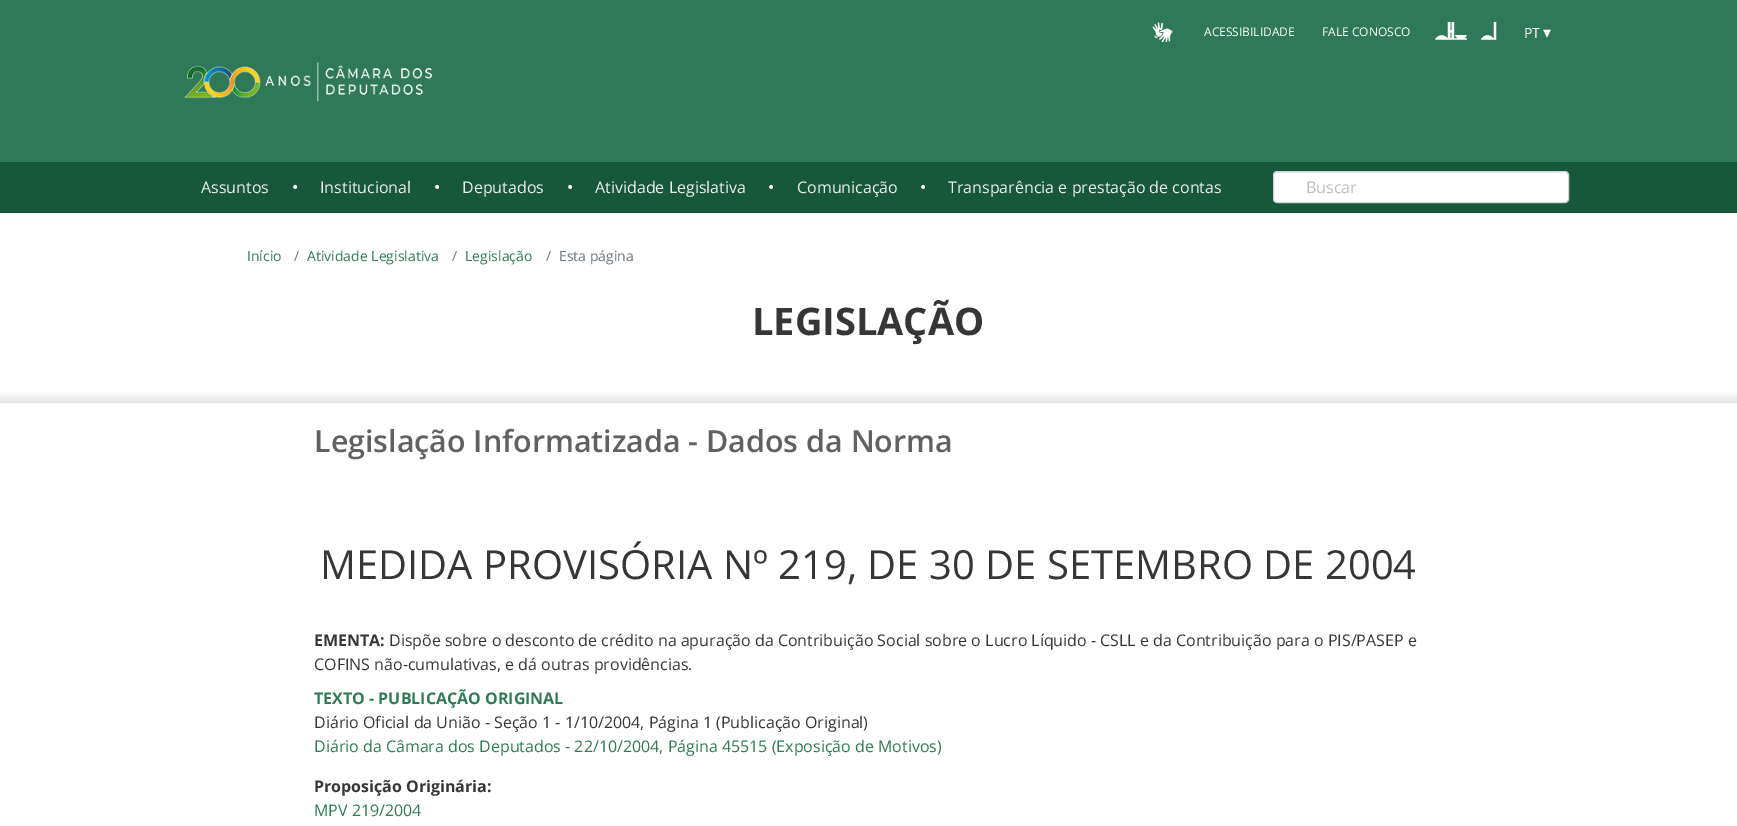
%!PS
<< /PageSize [1737 826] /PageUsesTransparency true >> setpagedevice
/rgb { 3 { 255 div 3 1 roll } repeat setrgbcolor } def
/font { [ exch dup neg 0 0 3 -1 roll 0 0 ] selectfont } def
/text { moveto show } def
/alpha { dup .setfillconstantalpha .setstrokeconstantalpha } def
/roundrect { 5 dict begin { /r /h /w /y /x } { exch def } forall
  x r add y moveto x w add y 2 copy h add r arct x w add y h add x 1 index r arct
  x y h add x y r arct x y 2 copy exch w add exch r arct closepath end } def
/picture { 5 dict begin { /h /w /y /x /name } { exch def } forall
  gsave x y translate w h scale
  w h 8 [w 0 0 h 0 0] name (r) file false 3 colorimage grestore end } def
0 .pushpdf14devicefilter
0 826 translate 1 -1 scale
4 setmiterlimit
255 255 255 rgb
0 0 1737 826 rectfill
47 121 88 rgb
0 0 1737 162 rectfill
(img_01.rgb) 1152 22 21 20 picture
(img_02.rgb) 1435 22 32 18 picture
(img_03.rgb) 1481 22 16 18 picture
(img_04.rgb) 184 62 248 40 picture
23 88 59 rgb
0 162 1737 51 rectfill
255 255 255 rgb
1274 172 294 30 3 roundrect fill
0.07 alpha
0 0 0 rgb
1277 173 moveto 288 0 rlineto 2 0 3 1 3 3 rcurveto -1 -3 rlineto -1 -1 rlineto -289 0 rlineto -2 0 -3 2 -3 4 rcurveto 0 -2 1 -3 3 -3 rcurveto closepath fill
1 alpha
206 212 218 rgb
1273.5 171.5 295 31 3.5 roundrect stroke
gsave 0 392 moveto 1737 0 rlineto 0 11 rlineto -1737 0 rlineto closepath clip newpath
<< /ShadingType 2 /ColorSpace /DeviceRGB /Coords [869 391 869 403] /Extend [true true] /Function << /FunctionType 2 /Domain [0 1] /C0 [1 1 1] /C1 [0.894 0.89 0.886] /N 1 >> >> shfill grestore
/OpenSans-Regular 12 font
255 255 255 rgb
(ACESSIBILIDADE) 1204 36 text
(FALE CONOSCO) 1322 36 text
/OpenSans-Regular 14 font
(PT) 1524 38 text
/DejaVuSans-Regular 16 font
(▾) 1543 38 text
/OpenSans-Regular 16 font
236 240 241 rgb
(Assuntos) 201 193 text
/OpenSans-Regular 32 font
255 255 255 rgb
(·) 291 198 text
/OpenSans-Regular 16 font
236 240 241 rgb
(Institucional) 320 193 text
/OpenSans-Regular 32 font
255 255 255 rgb
(·) 433 198 text
/OpenSans-Regular 16 font
236 240 241 rgb
(Deputados) 462 193 text
/OpenSans-Regular 32 font
255 255 255 rgb
(·) 566 198 text
/OpenSans-Regular 16 font
236 240 241 rgb
(Atividade Legislativa) 595 193 text
/OpenSans-Regular 32 font
255 255 255 rgb
(·) 767 198 text
/OpenSans-Regular 16 font
236 240 241 rgb
(Comunicação) 797 193 text
/OpenSans-Regular 32 font
255 255 255 rgb
(·) 919 198 text
/OpenSans-Regular 16 font
236 240 241 rgb
(Transparência e prestação de contas) 948 193 text
189 189 189 rgb
(Buscar) 1306 193 text
/OpenSans-Regular 14 font
47 121 88 rgb
(Início) 247 261 text
108 117 125 rgb
(/) 294 261 text
47 121 88 rgb
(Atividade Legislativa) 307 261 text
108 117 125 rgb
(/) 452 261 text
47 121 88 rgb
(Legislação) 465 261 text
108 117 125 rgb
(/) 546 261 text
(Esta página) 559 261 text
/OpenSans-Bold 38 font
54 54 54 rgb
(LEGISLAÇÃO) 752 335 text
/OpenSans-SemiBold 30.4 font
97 97 97 rgb
(Legislação Informatizada - Dados da Norma) 314 452 text
/OpenSans-Regular 40 font
54 54 54 rgb
(MEDIDA PROVISÓRIA Nº 219, DE 30 DE SETEMBRO DE 2004) 320 579 text
/OpenSans-Bold 16 font
(EMENTA:) 314 646 text
/OpenSans-Regular 16 font
(Dispõe sobre o desconto de crédito na apuração da Contribuição Social sobre o Lucro Líquido - CSLL e da Contribuição para o PIS/PASEP e) 389 646 text
(COFINS não-cumulativas, e dá outras providências.) 314 670 text
/OpenSans-Bold 16 font
47 121 88 rgb
(TEXTO - PUBLICAÇÃO ORIGINAL) 314 704 text
/OpenSans-Regular 16 font
54 54 54 rgb
(Diário Oficial da União - Seção 1 - 1/10/2004, Página 1 \(Publicação Original\)) 314 728 text
47 121 88 rgb
(Diário da Câmara dos Deputados - 22/10/2004, Página 45515 \(Exposição de Motivos\)) 314 752 text
/OpenSans-Bold 16 font
54 54 54 rgb
(Proposição Originária:) 314 792 text
/OpenSans-Regular 16 font
47 121 88 rgb
(MPV 219/2004) 314 816 text
.poppdf14devicefilter showpage
